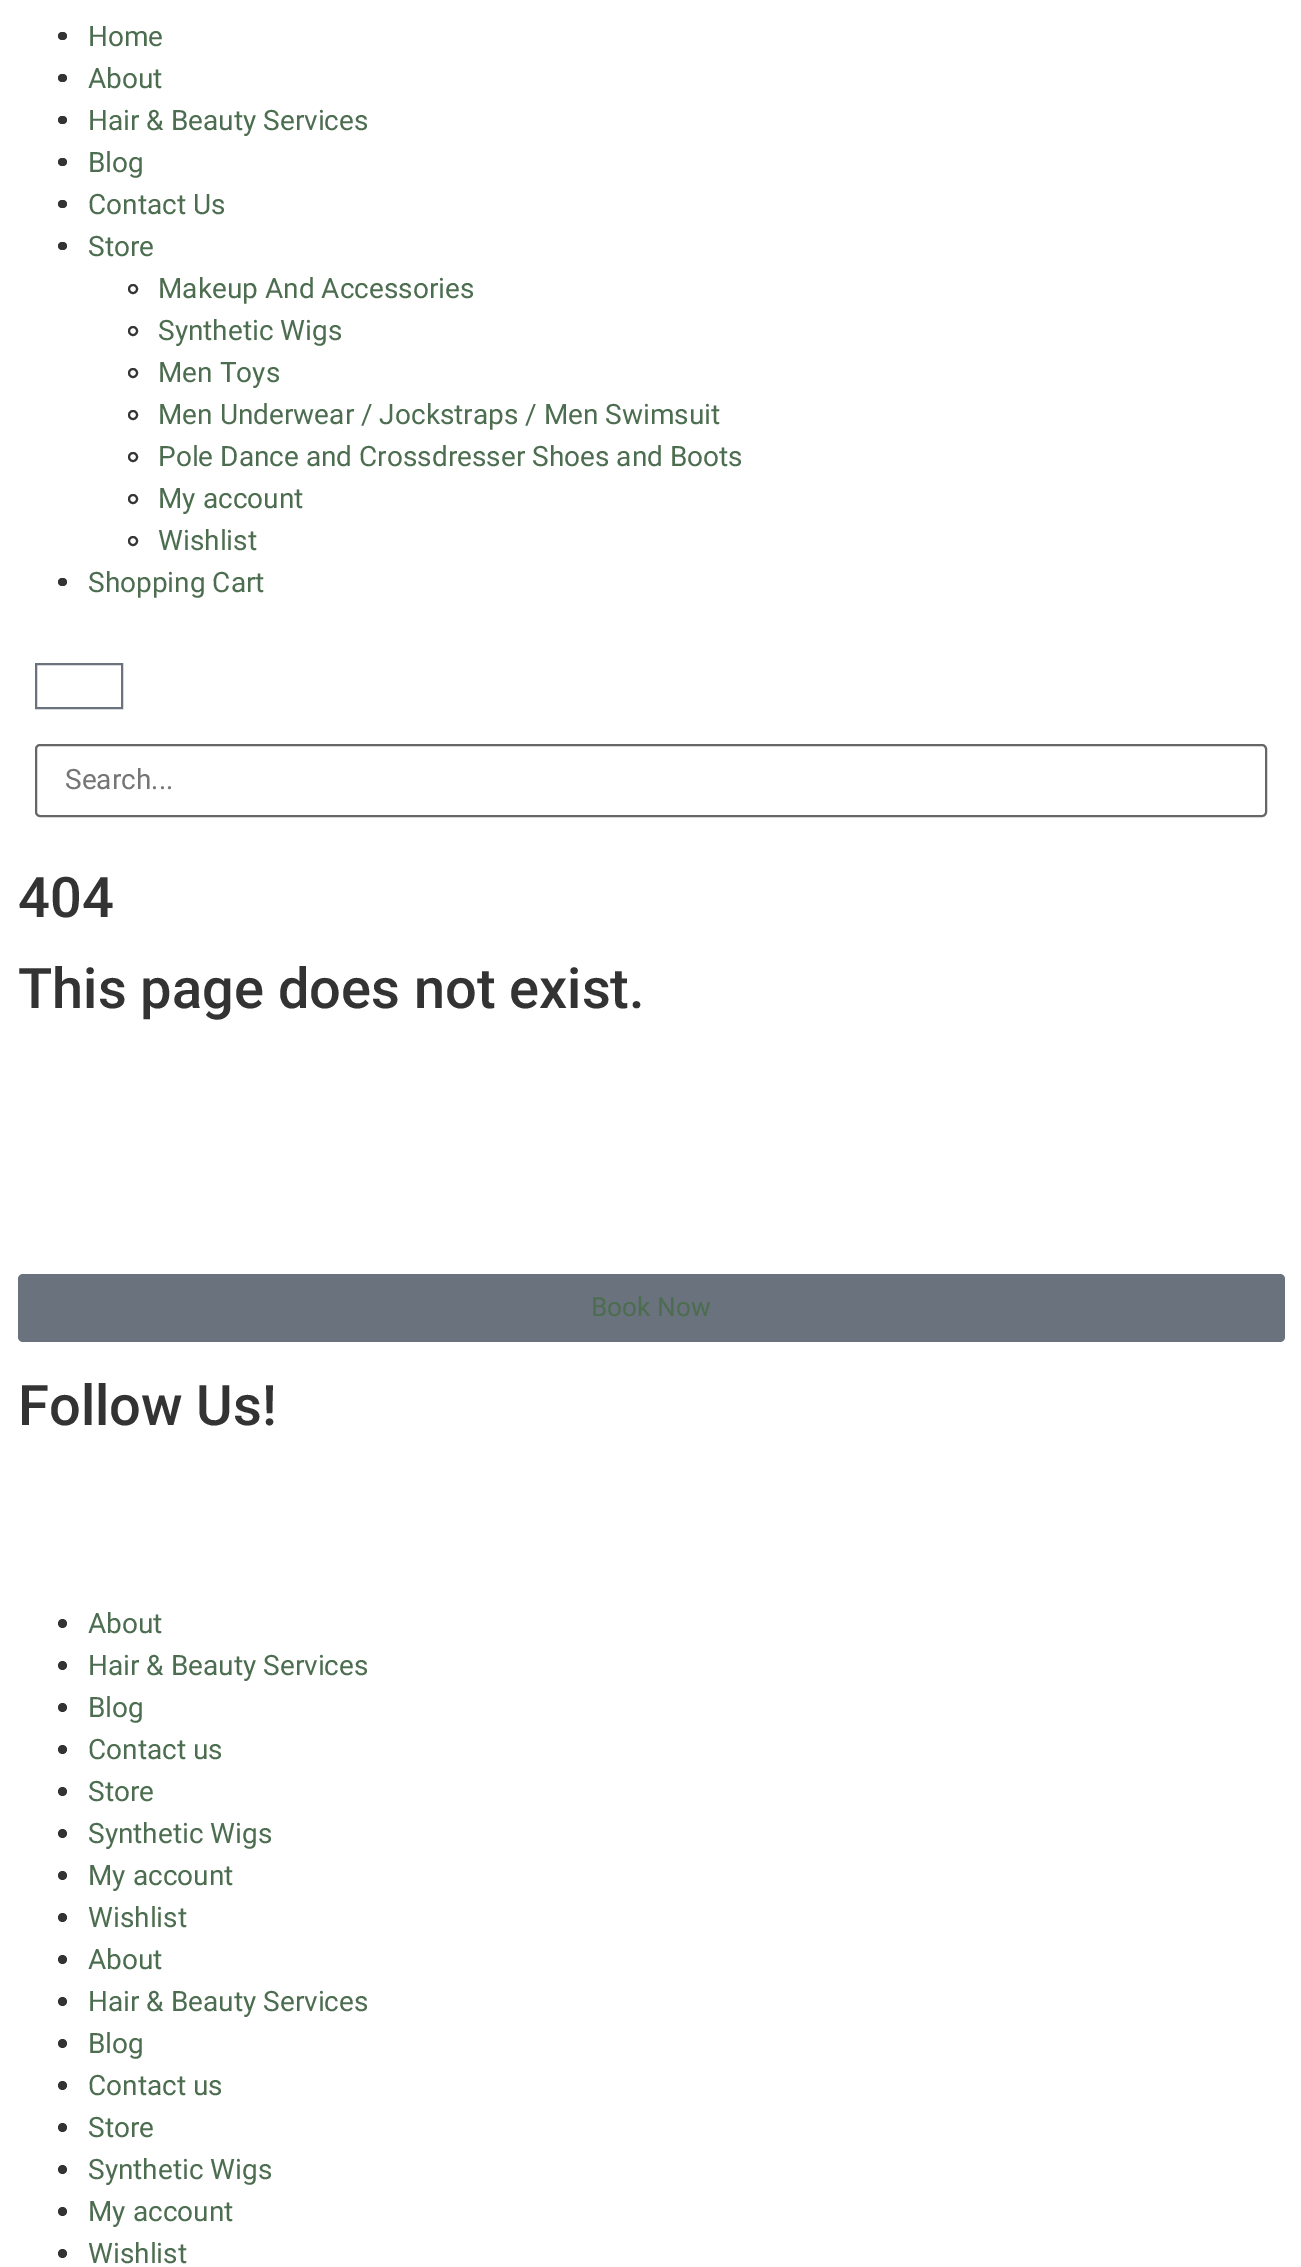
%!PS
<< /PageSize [1301 2267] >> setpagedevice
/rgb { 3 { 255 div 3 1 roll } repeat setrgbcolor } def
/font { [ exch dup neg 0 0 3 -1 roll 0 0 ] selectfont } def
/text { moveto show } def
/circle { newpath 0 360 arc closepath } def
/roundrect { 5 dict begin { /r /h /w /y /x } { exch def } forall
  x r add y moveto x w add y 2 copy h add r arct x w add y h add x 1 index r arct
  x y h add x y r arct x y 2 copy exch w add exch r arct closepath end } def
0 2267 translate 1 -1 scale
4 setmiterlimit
255 255 255 rgb
0 0 1301 2267 rectfill
51 51 51 rgb
58 32 9 8 4 roundrect fill
58 74 9 8 4 roundrect fill
58 116 9 8 4 roundrect fill
58 158 9 8 4 roundrect fill
58 200 9 8 4 roundrect fill
58 242 9 8 4 roundrect fill
2 setlinewidth
133 289 4 circle stroke
133 331 4 circle stroke
133 373 4 circle stroke
133 415 4 circle stroke
133 457 4 circle stroke
133 499 4 circle stroke
133 541 4 circle stroke
58 578 9 8 4 roundrect fill
105 114 125 rgb
36 664 86 44 rectstroke
102 102 102 rgb
36 745 1230 71 4 roundrect stroke
105 114 125 rgb
18 1274 1267 68 5 roundrect fill
51 51 51 rgb
62.5 1623.5 4.5 circle fill
62.5 1665.5 4.5 circle fill
62.5 1707.5 4.5 circle fill
62.5 1749.5 4.5 circle fill
62.5 1791.5 4.5 circle fill
62.5 1833.5 4.5 circle fill
62.5 1875.5 4.5 circle fill
62.5 1917.5 4.5 circle fill
62.5 1959.5 4.5 circle fill
62.5 2001.5 4.5 circle fill
62.5 2043.5 4.5 circle fill
62.5 2085.5 4.5 circle fill
62.5 2127.5 4.5 circle fill
62.5 2169.5 4.5 circle fill
62.5 2211.5 4.5 circle fill
62.5 2253.5 4.5 circle fill
/Roboto-Regular 28 font
76 109 79 rgb
(Home) 88 46 text
(About) 88 88 text
(Hair & Beauty Services) 88 130 text
(Blog) 88 172 text
(Contact Us) 88 214 text
(Store) 88 256 text
(Makeup And Accessories) 158 298 text
(Synthetic Wigs) 158 340 text
(Men Toys) 158 382 text
(Men Underwear / Jockstraps / Men Swimsuit) 158 424 text
(Pole Dance and Crossdresser Shoes and Boots) 158 466 text
(My account) 158 508 text
(Wishlist) 158 550 text
(Shopping Cart) 88 592 text
117 117 117 rgb
(Search...) 65 789 text
/Roboto-Medium 56 font
51 51 51 rgb
(404) 18 917 text
(This page does not exist.) 18 1008 text
/Roboto-Regular 26.25 font
76 109 79 rgb
(Book Now) 591 1316 text
/Roboto-Medium 56 font
51 51 51 rgb
(Follow Us!) 18 1425 text
/Roboto-Regular 28 font
76 109 79 rgb
(About) 88 1633 text
(Hair & Beauty Services) 88 1675 text
(Blog) 88 1717 text
(Contact us) 88 1759 text
(Store) 88 1801 text
(Synthetic Wigs) 88 1843 text
(My account) 88 1885 text
(Wishlist) 88 1927 text
(About) 88 1969 text
(Hair & Beauty Services) 88 2011 text
(Blog) 88 2053 text
(Contact us) 88 2095 text
(Store) 88 2137 text
(Synthetic Wigs) 88 2179 text
(My account) 88 2221 text
(Wishlist) 88 2263 text
showpage
